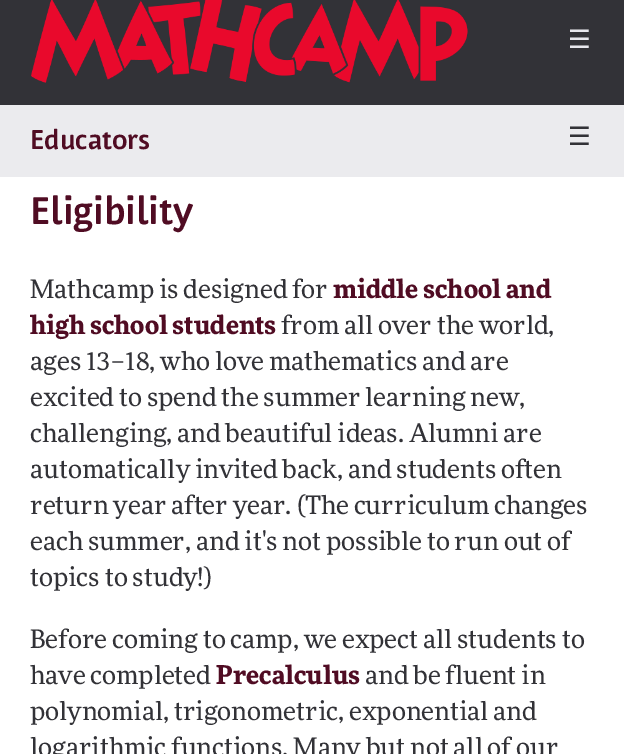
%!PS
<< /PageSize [624 754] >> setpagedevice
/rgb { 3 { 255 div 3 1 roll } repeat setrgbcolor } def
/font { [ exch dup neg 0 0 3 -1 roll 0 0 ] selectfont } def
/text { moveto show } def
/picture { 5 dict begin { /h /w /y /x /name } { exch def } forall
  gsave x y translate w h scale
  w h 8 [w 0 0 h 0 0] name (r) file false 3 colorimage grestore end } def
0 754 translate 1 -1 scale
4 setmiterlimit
255 255 255 rgb
0 0 624 754 rectfill
50 50 55 rgb
0 0 624 105 rectfill
(img_01.rgb) 31 0 437 83 picture
235 235 238 rgb
0 105 624 72 rectfill
/DejaVuSans-Regular 25.5 font
232 232 238 rgb
(☰) 568 48 text
/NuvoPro-Bold 27 font
80 12 35 rgb
(Educators) 30 149 text
/DejaVuSans-Regular 25.5 font
50 50 55 rgb
(☰) 568 145 text
/NuvoPro-Bold 38.25 font
80 12 35 rgb
(Eligibility) 30 224 text
/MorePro-Regular 25.5 font
50 50 55 rgb
(Mathcamp is designed for) 30 298 text
/MorePro-Bold 25.5 font
80 12 35 rgb
(middle school and) 333 298 text
(high school students) 30 334 text
/MorePro-Regular 25.5 font
50 50 55 rgb
(from all over the world,) 281 334 text
(ages 13–18, who love mathematics and are) 30 370 text
(excited to spend the summer learning new,) 30 406 text
(challenging, and beautiful ideas. Alumni are) 30 442 text
(automatically invited back, and students often) 30 478 text
(return year after year. \(The curriculum changes) 30 514 text
(each summer, and it's not possible to run out of) 30 550 text
(topics to study!\)) 30 586 text
(Before coming to camp, we expect all students to) 30 648 text
(have completed) 30 684 text
/MorePro-Bold 25.5 font
80 12 35 rgb
(Precalculus) 216 684 text
/MorePro-Regular 25.5 font
50 50 55 rgb
(and be fluent in) 365 684 text
(polynomial, trigonometric, exponential and) 30 720 text
(logarithmic functions. Many but not all of our) 30 756 text
showpage
